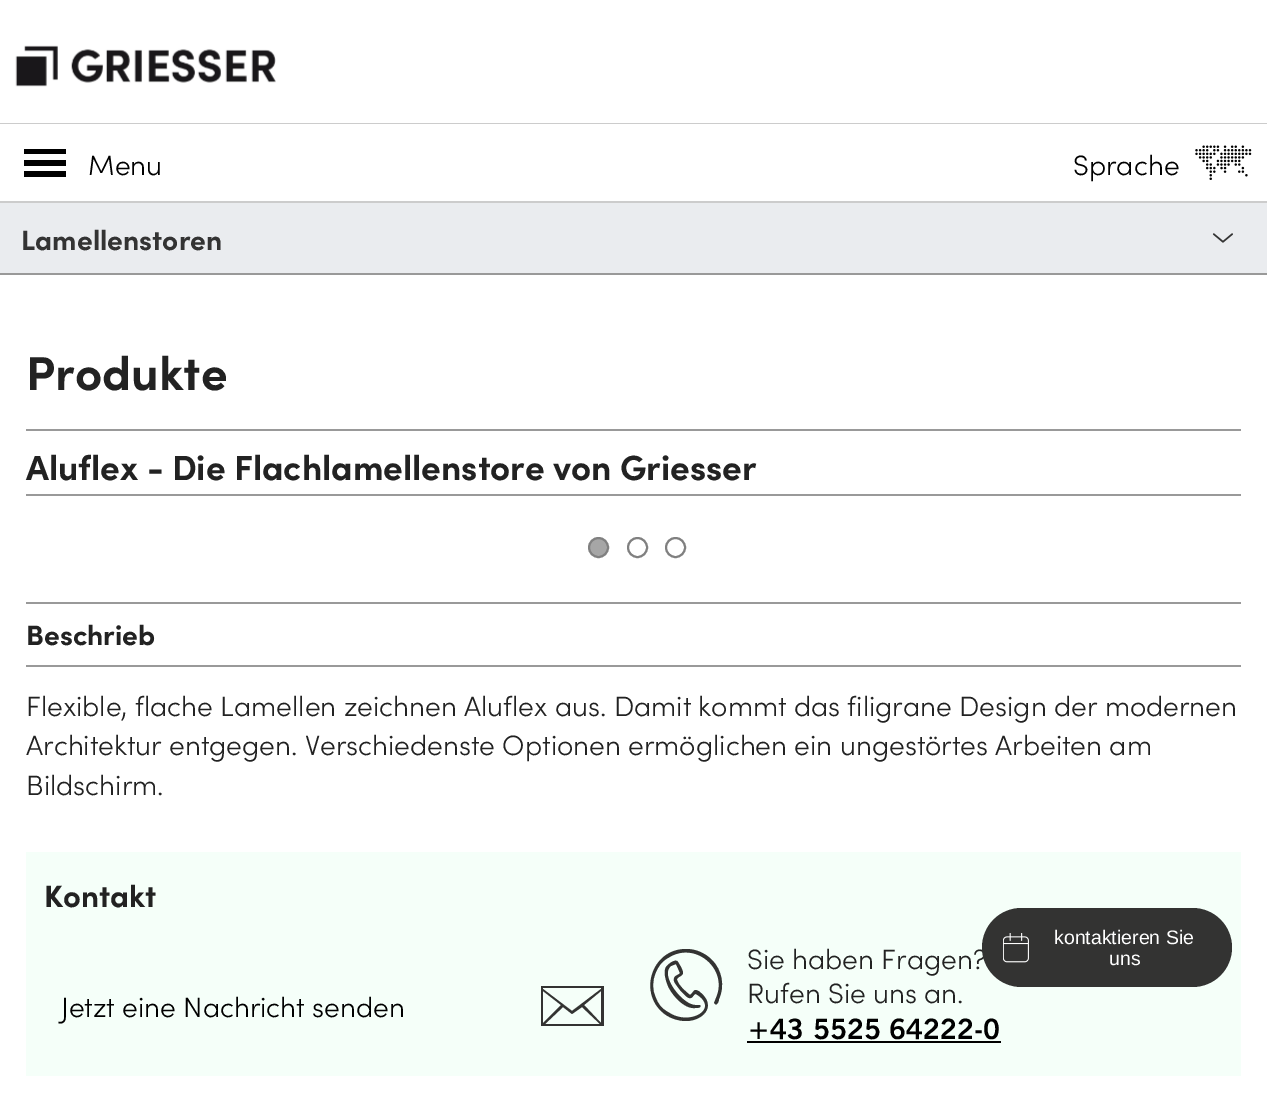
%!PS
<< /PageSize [1267 1109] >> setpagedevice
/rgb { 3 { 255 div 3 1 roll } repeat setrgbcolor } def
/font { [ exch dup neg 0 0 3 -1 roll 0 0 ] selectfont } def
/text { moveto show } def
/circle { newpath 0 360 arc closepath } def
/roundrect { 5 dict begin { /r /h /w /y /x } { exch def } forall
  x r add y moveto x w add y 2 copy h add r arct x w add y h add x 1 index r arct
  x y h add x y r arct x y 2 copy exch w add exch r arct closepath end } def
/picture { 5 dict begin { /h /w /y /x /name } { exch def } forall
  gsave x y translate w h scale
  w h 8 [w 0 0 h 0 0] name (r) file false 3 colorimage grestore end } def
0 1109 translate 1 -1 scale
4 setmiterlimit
255 255 255 rgb
0 0 1267 1109 rectfill
204 204 204 rgb
0 123 1267 1 rectfill
(img_01.rgb) 15 45 261 42 picture
0 201 1267 2 rectfill
0 0 0 rgb
24 149 moveto 42 0 rlineto 0 5 rlineto -42 0 rlineto closepath 24 160 moveto 42 0 rlineto 0 6 rlineto -42 0 rlineto closepath 24 171 moveto 42 0 rlineto 0 6 rlineto -42 0 rlineto closepath fill
(img_02.rgb) 1195 145 57 35 picture
234 236 239 rgb
0 203 1267 70 rectfill
153 153 153 rgb
0 273 1267 2 rectfill
(img_03.rgb) 1212 233 21 10 picture
26 429 1215 2 rectfill
26 494 1215 2 rectfill
166 166 166 rgb
598.5 547.5 9.5 circle gsave fill grestore
128 128 128 rgb
2 setlinewidth
stroke
637.5 547.5 9.5 circle stroke
675.5 547.5 9.5 circle stroke
153 153 153 rgb
26 602 1215 2 rectfill
26 665 1215 2 rectfill
245 255 249 rgb
26 852 1215 224 rectfill
51 51 50 rgb
541 986 moveto 63 0 rlineto 0 40 rlineto -63 0 rlineto closepath 572 1011 moveto 29 -22 rlineto 0 -1 rlineto -58 0 rlineto 0 1 rlineto closepath 543 991 moveto 0 32 rlineto 18 -18 rlineto closepath 601 1023 moveto 0 -32 rlineto -17 14 rlineto closepath 545 1024 moveto 55 0 rlineto -18 -17 rlineto -10 7 rlineto -9 -7 rlineto closepath eofill
686 1021 moveto 16 0 31 -14 15 -28 rcurveto -1 -1 -3 -3 -6 -3 rcurveto -2 1 -3 4 -5 5 rcurveto -4 -3 -13 -11 -13 -16 rcurveto 2 -2 rlineto 6 -3 4 -5 2 -10 rcurveto -3 -5 rlineto -2 -4 -10 2 -12 5 rcurveto -3 5 0 14 2 19 rcurveto 4 9 16 23 27 22 rcurveto 2 0 7 0 5 -3 rcurveto -1 0 rlineto -3 0 rlineto -13 1 -37 -30 -25 -39 rcurveto 5 -2 rlineto 4 9 rlineto -2 3 -7 2 -6 8 rcurveto 1 3 4 6 6 9 rcurveto 2 2 6 7 9 8 rcurveto 4 1 4 -4 7 -4 rcurveto 25 15 -7 33 -28 18 rcurveto -6 -3 -10 -8 -12 -14 rcurveto -4 -8 -4 -17 0 -26 rcurveto 2 -5 6 -11 12 -14 rcurveto 27 -18 61 11 48 40 rcurveto -2 5 rlineto 1 1 rlineto 2 2 4 -3 4 -5 rcurveto 6 -13 3 -29 -7 -39 rcurveto -7 -7 -16 -11 -26 -11 rcurveto -35 0 -49 46 -20 66 rcurveto 6 4 13 6 20 6 rcurveto closepath fill
0 0 0 rgb
747 1041 254 2 rectfill
/Sofia-Light 28 font
(Menu) 88 175 text
(Sprache) 1073 175 text
/Sofia-Bold 28 font
51 51 51 rgb
(Lamellenstoren) 21 250 text
/Sofia-Bold 47.5 font
34 34 34 rgb
(Produkte) 26 390 text
/Sofia-Bold 35 font
(Aluflex - Die Flachlamellenstore von Griesser) 26 480 text
/Sofia-Bold 28 font
(Beschrieb) 26 645 text
/Sofia-Light 28 font
(Flexible, flache Lamellen zeichnen Aluflex aus. Damit kommt das filigrane Design der modernen) 26 716 text
(Architektur entgegen. Verschiedenste Optionen ermöglichen ein ungestörtes Arbeiten am) 26 755 text
(Bildschirm.) 26 795 text
/Sofia-Bold 31 font
(Kontakt) 44 907 text
/Sofia-Light 28 font
0 0 0 rgb
(Jetzt eine Nachricht senden) 61 1017 text
34 34 34 rgb
(Sie haben Fragen?) 747 969 text
(Rufen Sie uns an.) 747 1003 text
/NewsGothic-Regular 28 font
0 0 0 rgb
(+43 5525 64222-0) 747 1039 text
51 51 50 rgb
982 908 250 79 39.5 roundrect fill
(img_04.rgb) 1003 933 26 30 picture
/LiberationSans-Regular 19.5 font
255 255 255 rgb
(kontaktieren Sie) 1054 944 text
(uns) 1109 965 text
showpage
